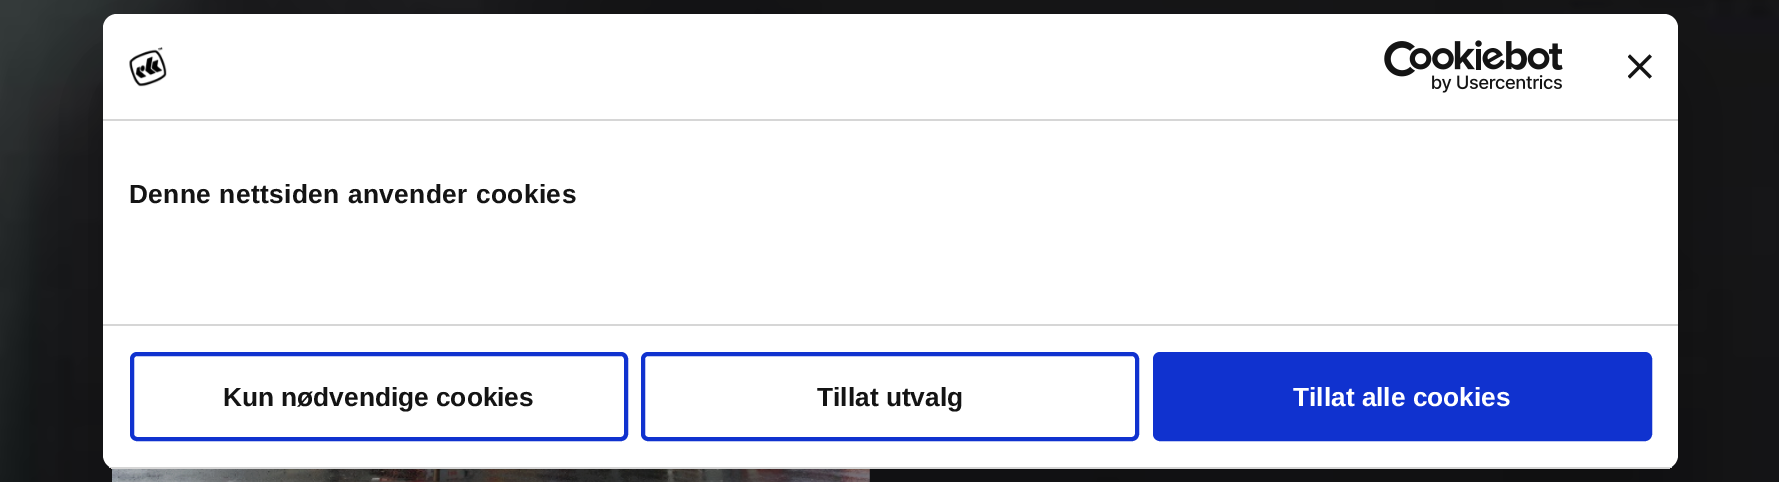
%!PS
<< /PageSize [1779 482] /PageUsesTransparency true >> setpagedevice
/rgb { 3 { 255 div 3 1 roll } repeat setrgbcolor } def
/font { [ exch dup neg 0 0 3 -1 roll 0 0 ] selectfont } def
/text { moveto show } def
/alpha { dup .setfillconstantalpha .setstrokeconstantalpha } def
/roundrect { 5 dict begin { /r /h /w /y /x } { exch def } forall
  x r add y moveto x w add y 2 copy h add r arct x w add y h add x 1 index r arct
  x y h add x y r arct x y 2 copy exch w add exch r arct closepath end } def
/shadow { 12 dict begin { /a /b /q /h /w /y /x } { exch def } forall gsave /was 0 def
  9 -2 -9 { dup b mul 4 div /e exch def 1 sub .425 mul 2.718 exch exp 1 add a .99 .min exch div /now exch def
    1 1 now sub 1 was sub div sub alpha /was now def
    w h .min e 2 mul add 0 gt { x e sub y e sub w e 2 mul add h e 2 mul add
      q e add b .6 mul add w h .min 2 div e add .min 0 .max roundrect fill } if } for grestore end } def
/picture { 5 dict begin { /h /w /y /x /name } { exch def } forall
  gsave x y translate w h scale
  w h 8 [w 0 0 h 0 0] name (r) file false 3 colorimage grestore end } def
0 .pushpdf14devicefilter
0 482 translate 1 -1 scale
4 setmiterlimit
255 255 255 rgb
0 0 1779 482 rectfill
(img_01.rgb) 0 0 1779 482 picture
(img_05.rgb) 112 468 758 14 picture
0 0 0 rgb
103 70 1575 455 14 59.5 0.3 shadow
255 255 255 rgb
103 14 1575 455 14 roundrect fill
214 214 214 rgb
103 119 1575 2 rectfill
(img_02.rgb) 129 47 38 40 picture
(img_03.rgb) 1384 40 179 53 picture
(img_04.rgb) 1628 54 24 25 picture
103 324 1575 2 rectfill
gsave
103 14 1575 455 14 roundrect clip newpath
103 467 1575 2 rectfill
grestore
16 50 207 rgb
4 setlinewidth
132 354 494 85 5 roundrect stroke
643 354 494 85 5 roundrect stroke
1155 354 495 85 5 roundrect gsave fill grestore
stroke
/LiberationSans-Bold 26.25 font
20 20 20 rgb
129 203 moveto 0.45 0 (Denne nettsiden anvender cookies) ashow
(Kun nødvendige cookies) 223 406 text
(Tillat utvalg) 817 406 text
255 255 255 rgb
(Tillat alle cookies) 1293 406 text
.poppdf14devicefilter showpage
